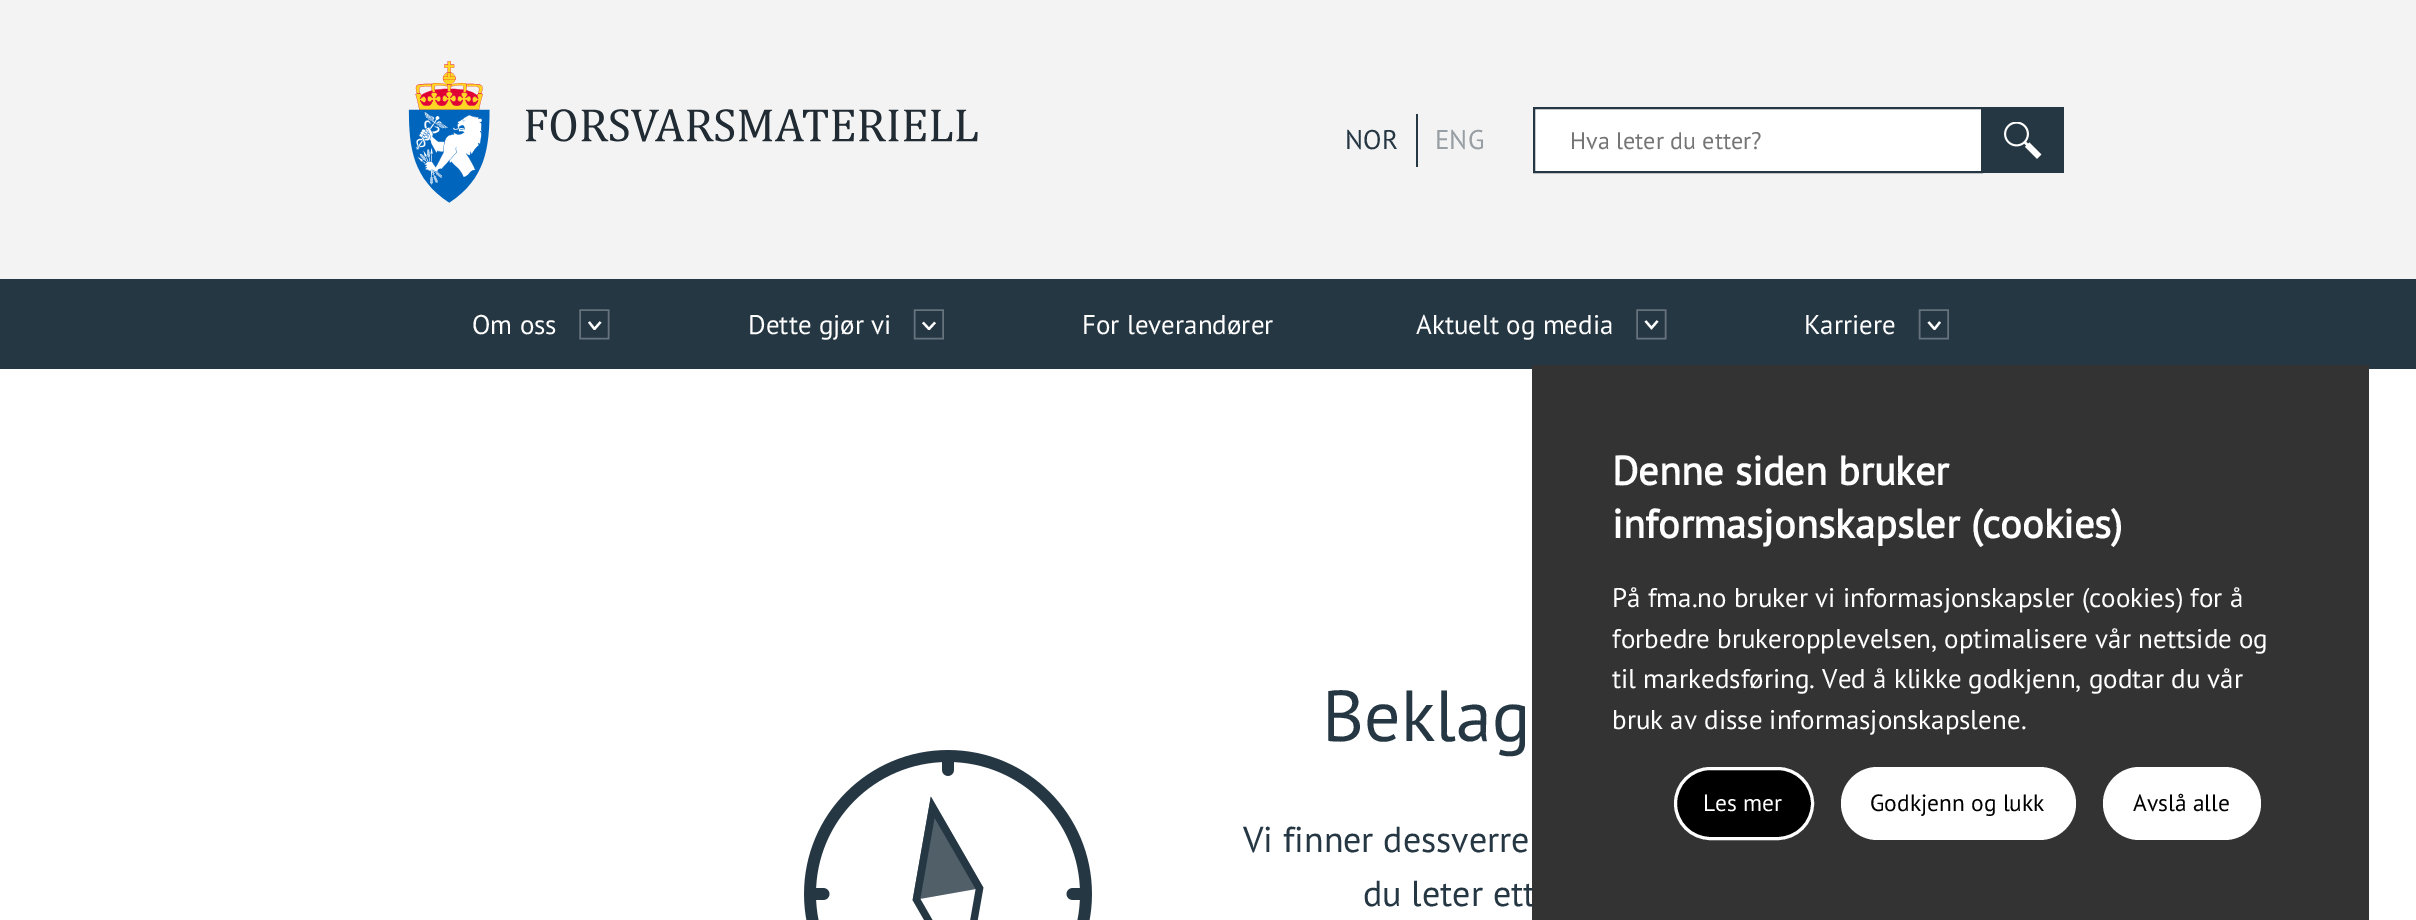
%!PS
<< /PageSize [2416 920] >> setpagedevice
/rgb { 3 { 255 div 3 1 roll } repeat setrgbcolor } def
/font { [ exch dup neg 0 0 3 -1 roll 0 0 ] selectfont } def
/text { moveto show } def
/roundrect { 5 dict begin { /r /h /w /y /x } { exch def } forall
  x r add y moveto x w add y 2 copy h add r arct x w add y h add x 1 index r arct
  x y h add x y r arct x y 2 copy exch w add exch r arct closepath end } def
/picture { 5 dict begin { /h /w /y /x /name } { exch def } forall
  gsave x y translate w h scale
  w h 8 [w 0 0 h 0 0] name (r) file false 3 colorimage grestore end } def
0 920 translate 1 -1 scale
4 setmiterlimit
255 255 255 rgb
0 0 2416 920 rectfill
244 243 243 rgb
0 0 2416 279 rectfill
(img_01.rgb) 408 61 570 142 picture
38 55 68 rgb
1416 114 2 53 rectfill
255 255 255 rgb
1534 108 moveto 448 0 rlineto 0 64 rlineto -448 0 rlineto closepath gsave fill grestore
38 55 68 rgb
2 setlinewidth
stroke
1983 107 81 66 rectfill
(img_02.rgb) 2004 122 38 37 picture
0 279 2416 90 rectfill
103 115 124 rgb
1.5 setlinewidth
608.5 310 moveto 0 28.5 rlineto -28.5 0 rlineto 0 -28.5 rlineto closepath stroke
gsave
602 319 moveto 0 10.5 rlineto -15 0 rlineto 0 -10.5 rlineto closepath clip newpath
255 255 255 rgb
2.2 setlinewidth
589 322 moveto 5.5 7 rlineto 6 -7 rlineto stroke
grestore
943 310 moveto 0 28.5 rlineto -28.5 0 rlineto 0 -28.5 rlineto closepath stroke
gsave
936 319 moveto 0 10.5 rlineto -15 0 rlineto 0 -10.5 rlineto closepath clip newpath
255 255 255 rgb
2.2 setlinewidth
923 322.5 moveto 6 6.5 rlineto 6 -6.5 rlineto stroke
grestore
1665.5 310 moveto 0 28.5 rlineto -28.5 0 rlineto 0 -28.5 rlineto closepath stroke
255 255 255 rgb
2.2 setlinewidth
1645.5 321 moveto 6 7 rlineto 6 -7 rlineto stroke
103 115 124 rgb
1.5 setlinewidth
1948 310 moveto 0 28.5 rlineto -28.5 0 rlineto 0 -28.5 rlineto closepath stroke
gsave
1941.5 319 moveto 0 10.5 rlineto -15 0 rlineto 0 -10.5 rlineto closepath clip newpath
255 255 255 rgb
2.2 setlinewidth
1928.5 322 moveto 6 7 rlineto 5.5 -7 rlineto stroke
grestore
(img_03.rgb) 804 750 288 170 picture
/PTSans-Regular 27 font
38 55 68 rgb
(NOR) 1345 149 text
151 158 164 rgb
(ENG) 1435 149 text
/PTSans-Regular 24 font
117 117 117 rgb
(Hva leter du etter?) 1570 149 text
/PTSans-Regular 27 font
255 255 255 rgb
(Om oss) 472 334 text
(Dette gjør vi) 748 334 text
(For leverandører) 1082 334 text
(Aktuelt og media) 1416 334 text
(Karriere) 1804 334 text
/PTSans-Regular 72 font
38 55 68 rgb
(Beklag) 1322 741 text
/PTSans-Regular 36 font
(Vi finner dessverre) 1243 852 text
(du leter ett) 1363 906 text
51 51 51 rgb
1532 365 837 555 rectfill
/PTSans-Bold 40.5 font
255 255 255 rgb
(Denne siden bruker) 1612 485 text
(informasjonskapsler \(cookies\)) 1612 538 text
/PTSans-Regular 27 font
(På fma.no bruker vi informasjonskapsler \(cookies\) for å) 1612 607 text
(forbedre brukeropplevelsen, optimalisere vår nettside og) 1612 648 text
(til markedsføring. Ved å klikke godkjenn, godtar du vår) 1612 688 text
(bruk av disse informasjonskapslene.) 1612 729 text
0 0 0 rgb
1675.5 768.5 137 70 35 roundrect gsave fill grestore
255 255 255 rgb
3 setlinewidth
stroke
/PTSans-Regular 23.5 font
(Les mer) 1703 811 text
1841 767 235 73 36.5 roundrect fill
0 0 0 rgb
(Godkjenn og lukk) 1870 811 text
255 255 255 rgb
2103 767 158 73 36.5 roundrect fill
0 0 0 rgb
(Avslå alle) 2133 811 text
showpage
